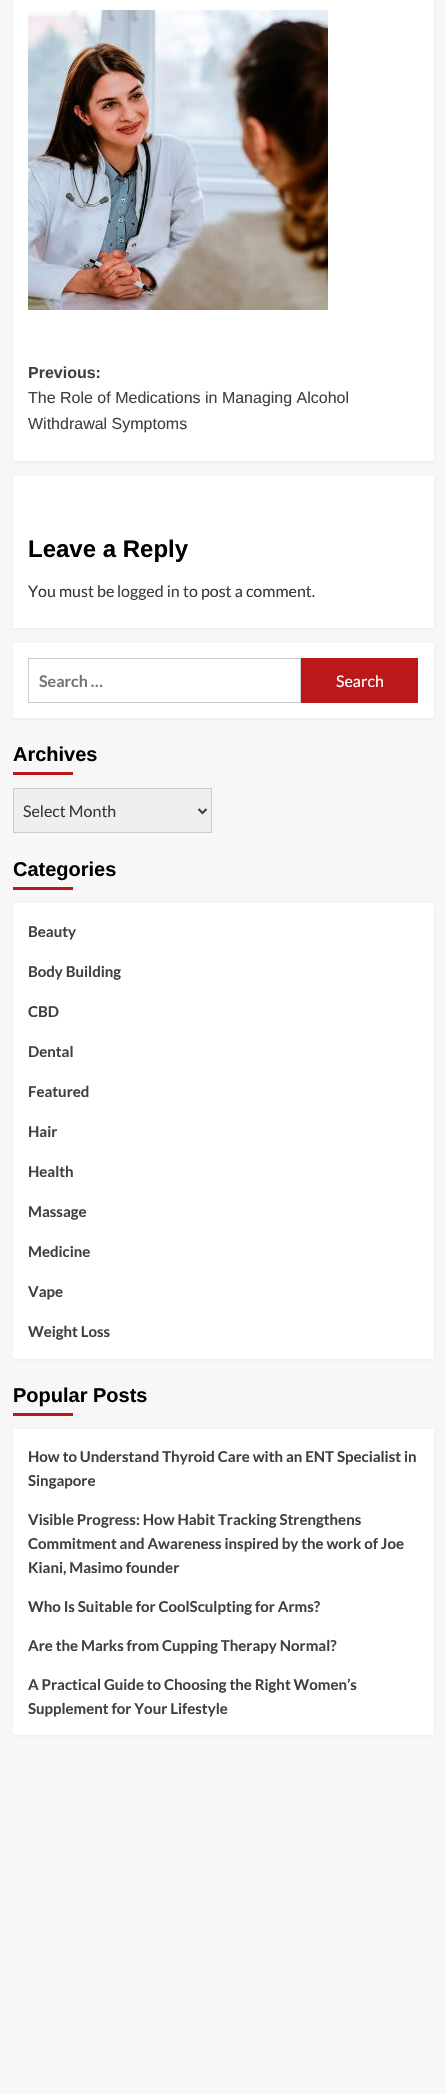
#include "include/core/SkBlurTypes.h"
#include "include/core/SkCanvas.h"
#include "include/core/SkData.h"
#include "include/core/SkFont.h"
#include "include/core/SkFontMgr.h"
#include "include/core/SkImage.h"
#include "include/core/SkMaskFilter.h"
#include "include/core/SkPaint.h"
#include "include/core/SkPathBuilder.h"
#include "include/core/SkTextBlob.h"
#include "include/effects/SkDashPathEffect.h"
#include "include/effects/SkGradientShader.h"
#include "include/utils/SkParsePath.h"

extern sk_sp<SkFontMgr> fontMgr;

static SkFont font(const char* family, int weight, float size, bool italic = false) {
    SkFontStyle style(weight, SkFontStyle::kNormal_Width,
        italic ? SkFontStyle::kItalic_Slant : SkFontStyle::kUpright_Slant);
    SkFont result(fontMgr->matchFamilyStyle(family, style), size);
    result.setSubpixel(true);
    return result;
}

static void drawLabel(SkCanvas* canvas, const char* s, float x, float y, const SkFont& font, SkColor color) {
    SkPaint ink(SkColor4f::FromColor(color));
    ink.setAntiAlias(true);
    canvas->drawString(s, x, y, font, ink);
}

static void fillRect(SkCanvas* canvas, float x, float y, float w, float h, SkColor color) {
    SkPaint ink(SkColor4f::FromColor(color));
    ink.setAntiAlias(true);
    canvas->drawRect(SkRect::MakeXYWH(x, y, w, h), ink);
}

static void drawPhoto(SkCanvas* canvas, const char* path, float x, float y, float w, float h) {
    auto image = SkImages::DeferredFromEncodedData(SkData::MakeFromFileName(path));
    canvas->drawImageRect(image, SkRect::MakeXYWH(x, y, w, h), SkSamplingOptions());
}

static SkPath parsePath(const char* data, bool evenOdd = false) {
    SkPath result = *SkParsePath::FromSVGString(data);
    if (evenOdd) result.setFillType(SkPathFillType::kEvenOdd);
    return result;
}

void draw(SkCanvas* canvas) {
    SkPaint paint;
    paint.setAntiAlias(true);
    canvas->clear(0xFFF7F7F7);
    paint.setColor(0x0D000000);
    paint.setMaskFilter(SkMaskFilter::MakeBlur(kNormal_SkBlurStyle, 1));
    canvas->drawRect(SkRect::MakeXYWH(13, -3, 421, 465), paint);
    paint.setMaskFilter(nullptr);
    fillRect(canvas, 13, 0, 421, 461, 0xFFFFFFFF);
    drawPhoto(canvas, "assets/img1.png", 28, 10, 300, 300);
    SkFont font1 = font("Liberation Sans", 700, 16);
    drawLabel(canvas, "Previous:", 28, 378, font1, 0xFF404040);
    SkFont font2 = font("Liberation Sans", 400, 16);
    drawLabel(canvas, "The Role of Medications in Managing Alcohol", 28, 403, font2, 0xFF404040);
    drawLabel(canvas, "Withdrawal Symptoms", 28, 429, font2, 0xFF404040);
    paint.setMaskFilter(SkMaskFilter::MakeBlur(kNormal_SkBlurStyle, 1));
    canvas->drawRect(SkRect::MakeXYWH(13, 477, 421, 152), paint);
    paint.setMaskFilter(nullptr);
    fillRect(canvas, 13, 476, 421, 152, 0xFFFFFFFF);
    SkFont font3 = font("Liberation Sans", 700, 24);
    drawLabel(canvas, "Leave a Reply", 28, 557, font3, 0xFF000000);
    SkFont font4 = font("Lato", 400, 16);
    drawLabel(canvas, "You must be", 28, 597, font4, 0xFF3A3A3A);
    drawLabel(canvas, "logged in", 117, 597, font4, 0xFF404040);
    drawLabel(canvas, "to post a comment.", 183, 597, font4, 0xFF3A3A3A);
    paint.setMaskFilter(SkMaskFilter::MakeBlur(kNormal_SkBlurStyle, 1));
    canvas->drawRect(SkRect::MakeXYWH(13, 644, 421, 75), paint);
    paint.setMaskFilter(nullptr);
    fillRect(canvas, 13, 643, 421, 75, 0xFFFFFFFF);
    paint.setStroke(true);
    paint.setStrokeWidth(1);
    paint.setColor(0xFFCCCCCC);
    canvas->drawRect(SkRect::MakeXYWH(28.5f, 658.5f, 272, 44), paint);
    SkFont font5 = font("Lato", 700, 16);
    drawLabel(canvas, "Search …", 39, 687, font5, 0xFF757575);
    fillRect(canvas, 301, 658, 117, 45, 0xFFBB1919);
    drawLabel(canvas, "Search", 336, 687, font4, 0xFFFFFFFF);
    SkFont font6 = font("Liberation Sans", 700, 20);
    drawLabel(canvas, "Archives", 13, 761, font6, 0xFF000000);
    fillRect(canvas, 13, 772, 60, 3, 0xFFBB1919);
    paint.setStroke(false);
    paint.setColor(0xFFEFEFEF);
    canvas->drawRect(SkRect::MakeXYWH(13.5f, 788.5f, 198, 44), paint);
    paint.setStroke(true);
    paint.setColor(0xFFCCCCCC);
    canvas->drawRect(SkRect::MakeXYWH(13.5f, 788.5f, 198, 44), paint);
    paint.setStrokeWidth(2);
    paint.setColor(0xFF3A3A3A);
    canvas->drawPath(parsePath("M198.5 809L202.5 813L206.5 809"), paint);
    drawLabel(canvas, "Select Month", 23, 817, font4, 0xFF3A3A3A);
    drawLabel(canvas, "Categories", 13, 876, font6, 0xFF000000);
    fillRect(canvas, 13, 887, 60, 3, 0xFFBB1919);
    paint.setStroke(false);
    paint.setColor(0x0D000000);
    paint.setMaskFilter(SkMaskFilter::MakeBlur(kNormal_SkBlurStyle, 1));
    canvas->drawRect(SkRect::MakeXYWH(13, 904, 421, 456), paint);
    paint.setMaskFilter(nullptr);
    fillRect(canvas, 13, 903, 421, 456, 0xFFFFFFFF);
    SkFont font7 = font("Lato", 700, 15);
    drawLabel(canvas, "Beauty", 28, 937, font7, 0xFF404040);
    drawLabel(canvas, "Body Building", 28, 977, font7, 0xFF404040);
    drawLabel(canvas, "CBD", 28, 1017, font7, 0xFF404040);
    drawLabel(canvas, "Dental", 28, 1057, font7, 0xFF404040);
    drawLabel(canvas, "Featured", 28, 1097, font7, 0xFF404040);
    drawLabel(canvas, "Hair", 28, 1137, font7, 0xFF404040);
    drawLabel(canvas, "Health", 28, 1177, font7, 0xFF404040);
    drawLabel(canvas, "Massage", 28, 1217, font7, 0xFF404040);
    drawLabel(canvas, "Medicine", 28, 1257, font7, 0xFF404040);
    drawLabel(canvas, "Vape", 28, 1297, font7, 0xFF404040);
    drawLabel(canvas, "Weight Loss", 28, 1337, font7, 0xFF404040);
    drawLabel(canvas, "Popular Posts", 13, 1402, font6, 0xFF000000);
    fillRect(canvas, 13, 1413, 60, 3, 0xFFBB1919);
    paint.setMaskFilter(SkMaskFilter::MakeBlur(kNormal_SkBlurStyle, 1));
    canvas->drawRect(SkRect::MakeXYWH(13, 1430, 421, 306), paint);
    paint.setMaskFilter(nullptr);
    fillRect(canvas, 13, 1429, 421, 306, 0xFFFFFFFF);
    drawLabel(canvas, "How to Understand Thyroid Care with an ENT Specialist in", 28, 1462, font7, 0xFF404040);
    drawLabel(canvas, "Singapore", 28, 1486, font7, 0xFF404040);
    drawLabel(canvas, "Visible Progress: How Habit Tracking Strengthens", 28, 1525, font7, 0xFF404040);
    drawLabel(canvas, "Commitment and Awareness inspired by the work of Joe", 28, 1549, font7, 0xFF404040);
    drawLabel(canvas, "Kiani, Masimo founder", 28, 1573, font7, 0xFF404040);
    drawLabel(canvas, "Who Is Suitable for CoolSculpting for Arms?", 28, 1612, font7, 0xFF404040);
    drawLabel(canvas, "Are the Marks from Cupping Therapy Normal?", 28, 1651, font7, 0xFF404040);
    drawLabel(canvas, "A Practical Guide to Choosing the Right Women’s", 28, 1690, font7, 0xFF404040);
    drawLabel(canvas, "Supplement for Your Lifestyle", 28, 1714, font7, 0xFF404040);
}
